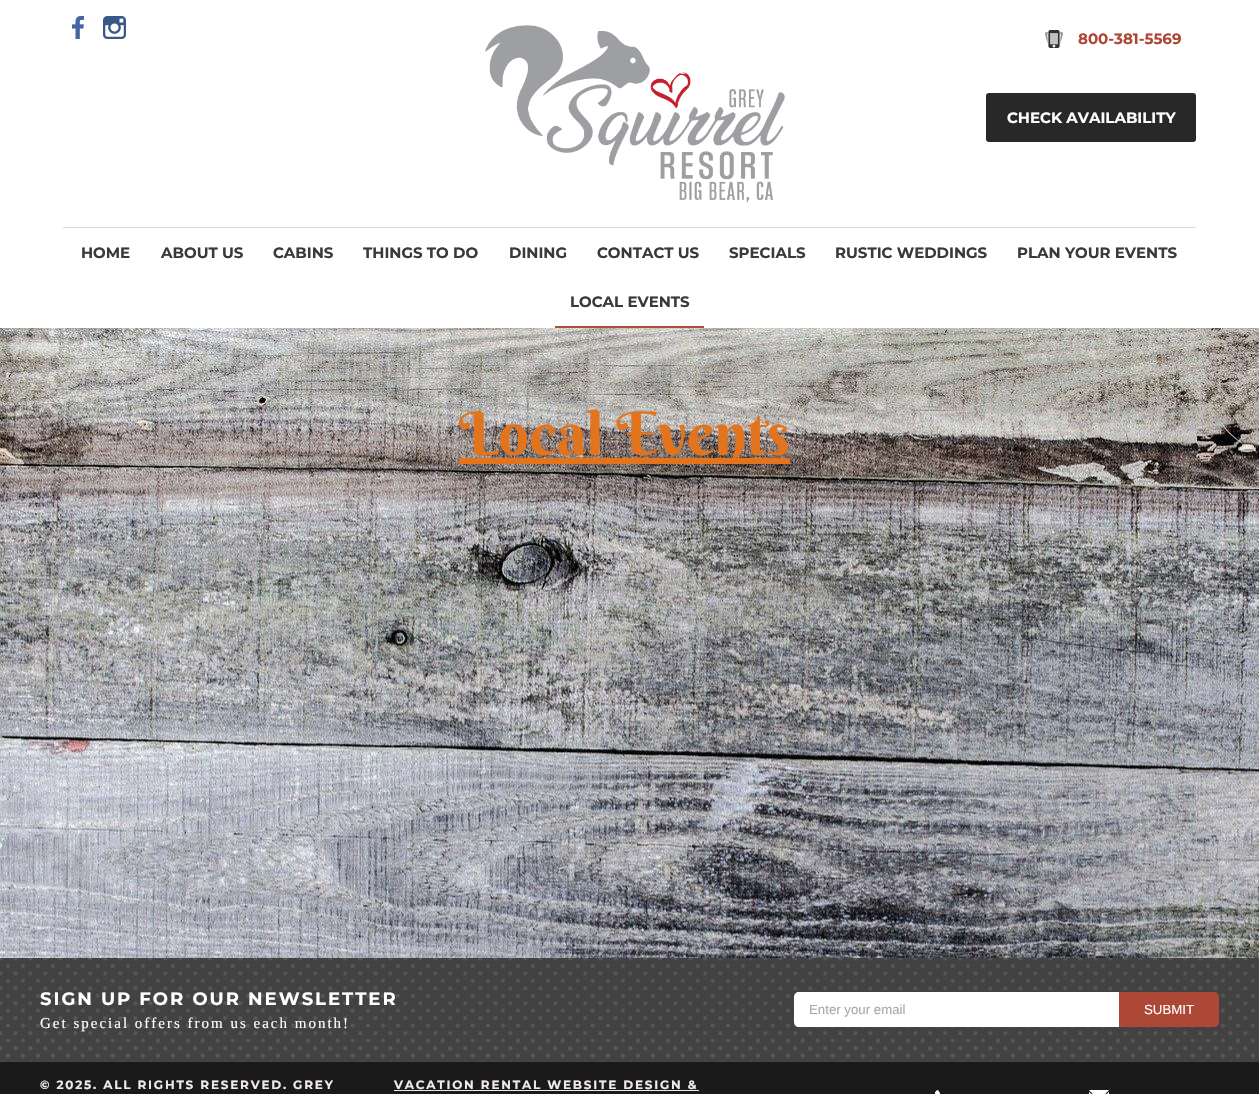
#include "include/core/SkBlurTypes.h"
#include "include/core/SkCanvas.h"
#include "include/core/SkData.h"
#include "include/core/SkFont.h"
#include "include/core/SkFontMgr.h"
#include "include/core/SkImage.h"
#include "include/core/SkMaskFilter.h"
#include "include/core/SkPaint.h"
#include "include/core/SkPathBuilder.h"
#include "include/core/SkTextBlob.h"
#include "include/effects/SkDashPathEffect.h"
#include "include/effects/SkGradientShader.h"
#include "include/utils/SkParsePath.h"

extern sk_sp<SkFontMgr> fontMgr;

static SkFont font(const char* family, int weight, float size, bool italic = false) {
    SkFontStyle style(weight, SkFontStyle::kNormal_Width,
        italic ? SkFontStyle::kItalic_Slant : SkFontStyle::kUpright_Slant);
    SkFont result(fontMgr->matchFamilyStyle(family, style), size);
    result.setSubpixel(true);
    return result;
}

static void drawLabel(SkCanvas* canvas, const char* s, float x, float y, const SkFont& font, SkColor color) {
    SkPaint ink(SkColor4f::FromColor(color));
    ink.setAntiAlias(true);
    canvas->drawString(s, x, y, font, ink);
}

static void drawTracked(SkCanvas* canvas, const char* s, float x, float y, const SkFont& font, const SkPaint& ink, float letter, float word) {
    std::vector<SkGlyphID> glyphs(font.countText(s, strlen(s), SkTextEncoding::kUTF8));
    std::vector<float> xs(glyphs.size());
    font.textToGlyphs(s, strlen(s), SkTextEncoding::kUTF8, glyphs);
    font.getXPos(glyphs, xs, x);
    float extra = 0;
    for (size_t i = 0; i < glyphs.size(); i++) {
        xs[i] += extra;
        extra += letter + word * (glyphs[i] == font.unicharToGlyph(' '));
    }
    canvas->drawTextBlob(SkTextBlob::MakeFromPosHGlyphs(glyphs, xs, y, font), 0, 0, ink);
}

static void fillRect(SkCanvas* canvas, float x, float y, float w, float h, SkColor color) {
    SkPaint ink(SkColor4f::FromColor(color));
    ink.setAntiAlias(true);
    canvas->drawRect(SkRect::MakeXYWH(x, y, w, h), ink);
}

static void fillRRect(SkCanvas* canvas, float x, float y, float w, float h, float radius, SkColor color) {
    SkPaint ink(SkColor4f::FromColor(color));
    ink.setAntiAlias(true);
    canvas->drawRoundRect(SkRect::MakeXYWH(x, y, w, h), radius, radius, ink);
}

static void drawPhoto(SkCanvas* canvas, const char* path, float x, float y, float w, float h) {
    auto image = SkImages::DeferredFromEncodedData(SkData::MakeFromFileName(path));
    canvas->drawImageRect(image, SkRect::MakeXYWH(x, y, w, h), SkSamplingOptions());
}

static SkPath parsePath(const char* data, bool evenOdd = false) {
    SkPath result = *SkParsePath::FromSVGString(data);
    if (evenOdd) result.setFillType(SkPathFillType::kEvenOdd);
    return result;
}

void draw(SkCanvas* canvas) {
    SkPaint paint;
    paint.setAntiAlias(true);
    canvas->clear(0xFFFFFFFF);
    drawPhoto(canvas, "assets/img1.png", 72, 16, 12, 23);
    drawPhoto(canvas, "assets/img2.png", 103, 16, 23, 23);
    drawPhoto(canvas, "assets/img3.png", 485, 25, 300, 177);
    drawPhoto(canvas, "assets/img4.png", 1045, 30, 18, 18);
    SkFont font1 = font("Montserrat", 700, 15);
    drawLabel(canvas, "800-381-5569", 1078, 44, font1, 0xFFAD4736);
    fillRRect(canvas, 986, 93, 210, 49, 3, 0xFF282828);
    drawLabel(canvas, "CHECK AVAILABILITY", 1007, 123, font1, 0xFFFFFFFF);
    fillRect(canvas, 63, 227, 1133, 1, 0xFFD9D9D9);
    drawLabel(canvas, "HOME", 81, 258, font1, 0xFF3A3A3A);
    drawLabel(canvas, "ABOUT US", 161, 258, font1, 0xFF3A3A3A);
    drawLabel(canvas, "CABINS", 273, 258, font1, 0xFF3A3A3A);
    drawLabel(canvas, "THINGS TO DO", 363, 258, font1, 0xFF3A3A3A);
    drawLabel(canvas, "DINING", 509, 258, font1, 0xFF3A3A3A);
    drawLabel(canvas, "CONTACT US", 597, 258, font1, 0xFF3A3A3A);
    drawLabel(canvas, "SPECIALS", 729, 258, font1, 0xFF3A3A3A);
    drawLabel(canvas, "RUSTIC WEDDINGS", 835, 258, font1, 0xFF3A3A3A);
    drawLabel(canvas, "PLAN YOUR EVENTS", 1017, 258, font1, 0xFF3A3A3A);
    fillRect(canvas, 555, 326, 149, 2, 0xFFAF4D3D);
    drawLabel(canvas, "LOCAL EVENTS", 570, 307, font1, 0xFF3A3A3A);
    drawPhoto(canvas, "assets/img5.png", 0, 328, 1259, 630);
    fillRect(canvas, 459, 458, 331, 6, 0xFFE3741E);
    SkFont font2 = font("Berkshire Swash", 400, 60);
    drawLabel(canvas, "Local Events", 459, 455, font2, 0xFFE3741E);
    fillRect(canvas, 0, 958, 1259, 104, 0xFF424242);
    drawPhoto(canvas, "assets/img6.png", 0, 958, 1259, 104);
    SkFont font3 = font("Montserrat", 700, 18);
    paint.setColor(0xFFFFFFFF);
    drawTracked(canvas, "SIGN UP FOR OUR NEWSLETTER", 40, 1005, font3, paint, 2, 0);
    SkFont font4 = font("Liberation Serif", 400, 15);
    drawTracked(canvas, "Get special offers from us each month!", 40, 1028, font4, paint, 2, 0);
    canvas->drawPath(parsePath("M799 992H1119V1027H799C796 1027 794 1025 794 1022V997C794 994 796 992 799 992Z"), paint);
    SkFont font5 = font("Liberation Sans", 400, 13.25f);
    drawLabel(canvas, "Enter your email", 809, 1014, font5, 0xFFA8A8A8);
    paint.setColor(0xFFAD4736);
    canvas->drawPath(parsePath("M1119 992H1214C1217 992 1219 994 1219 997V1022C1219 1025 1217 1027 1214 1027H1119Z"), paint);
    drawLabel(canvas, "SUBMIT", 1144, 1014, font5, 0xFFFFFFFF);
    fillRect(canvas, 0, 1062, 1259, 32, 0xFF1A1A1A);
    SkFont font6 = font("Montserrat", 700, 12);
    paint.setColor(0xFFF1E9EB);
    drawTracked(canvas, "© 2025. ALL RIGHTS RESERVED. GREY", 40, 1089, font6, paint, 1.8f, 0);
    drawTracked(canvas, "VACATION RENTAL WEBSITE DESIGN &", 394, 1089, font6, paint, 1.8f, 0);
    fillRect(canvas, 394, 1090, 305, 1, 0xFFF1E9EB);
    drawPhoto(canvas, "assets/img7.png", 935, 1090, 5, 4);
    drawPhoto(canvas, "assets/img8.png", 1089, 1090, 20, 4);
}
